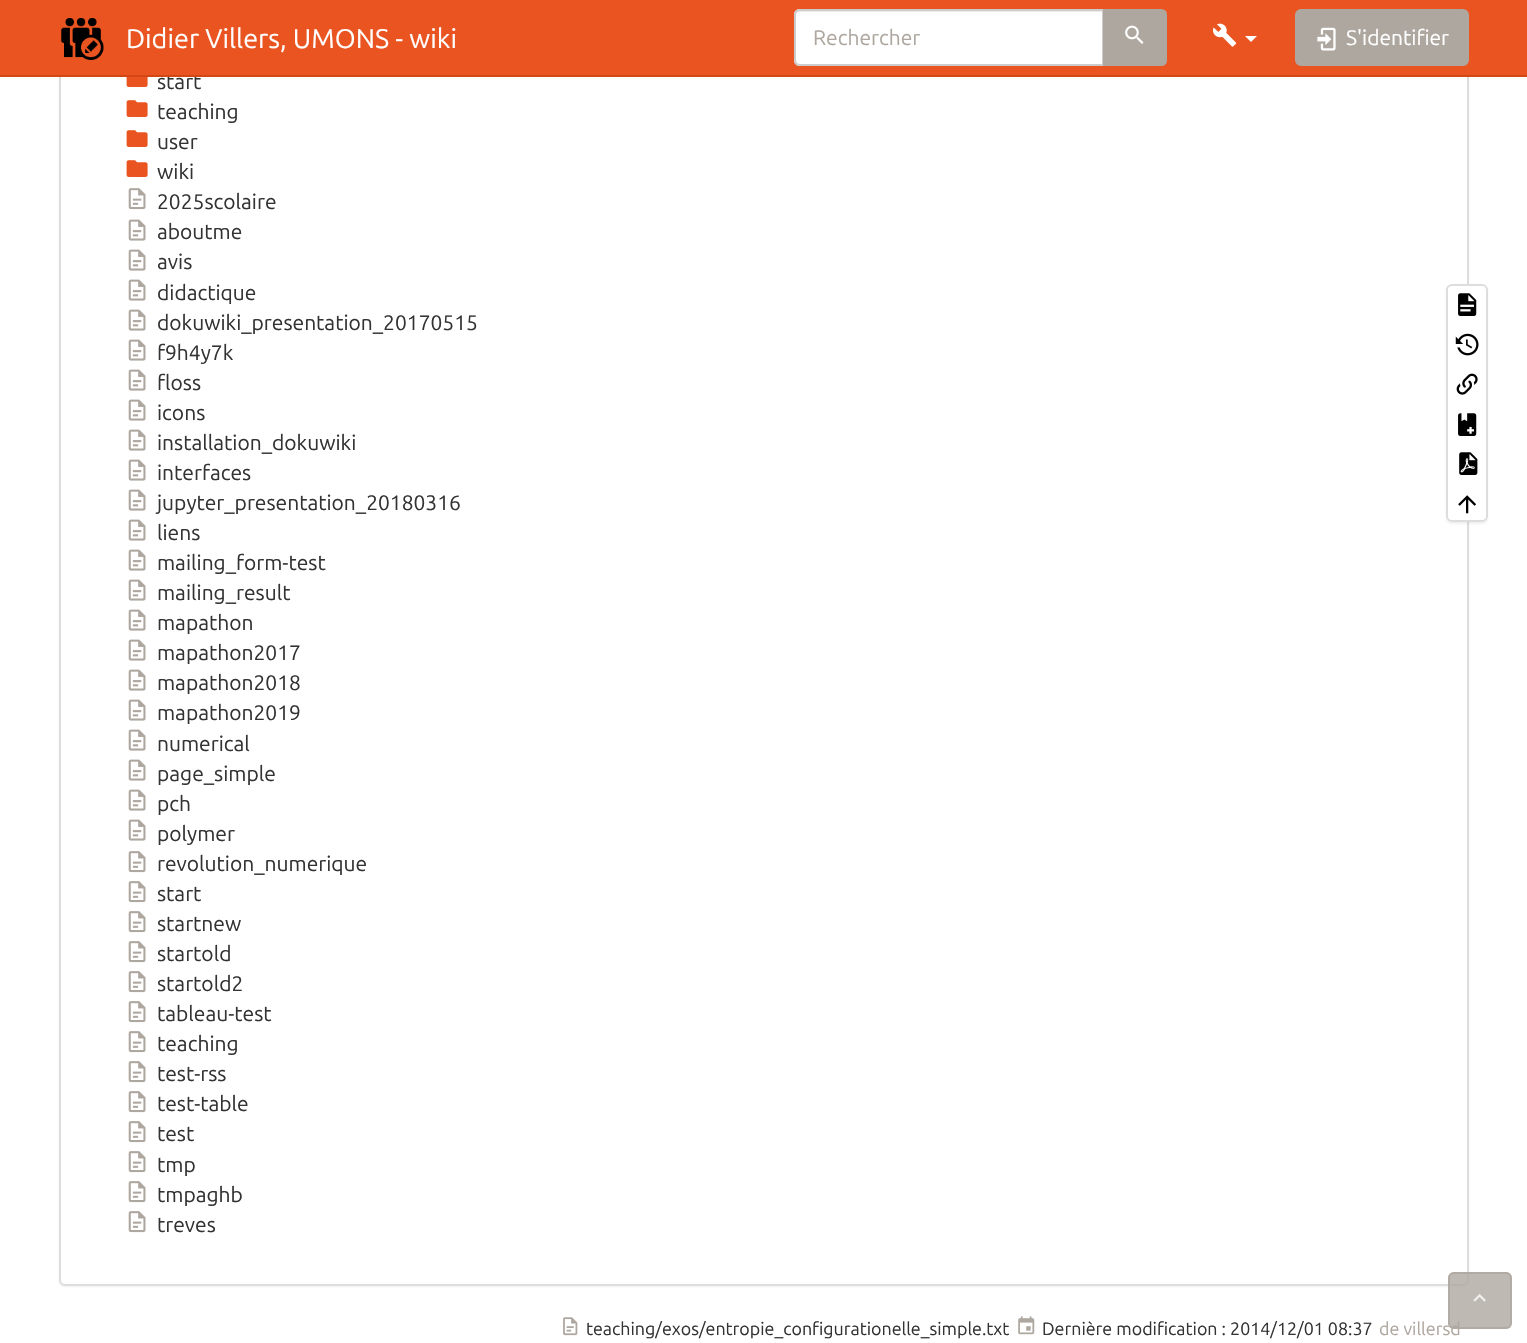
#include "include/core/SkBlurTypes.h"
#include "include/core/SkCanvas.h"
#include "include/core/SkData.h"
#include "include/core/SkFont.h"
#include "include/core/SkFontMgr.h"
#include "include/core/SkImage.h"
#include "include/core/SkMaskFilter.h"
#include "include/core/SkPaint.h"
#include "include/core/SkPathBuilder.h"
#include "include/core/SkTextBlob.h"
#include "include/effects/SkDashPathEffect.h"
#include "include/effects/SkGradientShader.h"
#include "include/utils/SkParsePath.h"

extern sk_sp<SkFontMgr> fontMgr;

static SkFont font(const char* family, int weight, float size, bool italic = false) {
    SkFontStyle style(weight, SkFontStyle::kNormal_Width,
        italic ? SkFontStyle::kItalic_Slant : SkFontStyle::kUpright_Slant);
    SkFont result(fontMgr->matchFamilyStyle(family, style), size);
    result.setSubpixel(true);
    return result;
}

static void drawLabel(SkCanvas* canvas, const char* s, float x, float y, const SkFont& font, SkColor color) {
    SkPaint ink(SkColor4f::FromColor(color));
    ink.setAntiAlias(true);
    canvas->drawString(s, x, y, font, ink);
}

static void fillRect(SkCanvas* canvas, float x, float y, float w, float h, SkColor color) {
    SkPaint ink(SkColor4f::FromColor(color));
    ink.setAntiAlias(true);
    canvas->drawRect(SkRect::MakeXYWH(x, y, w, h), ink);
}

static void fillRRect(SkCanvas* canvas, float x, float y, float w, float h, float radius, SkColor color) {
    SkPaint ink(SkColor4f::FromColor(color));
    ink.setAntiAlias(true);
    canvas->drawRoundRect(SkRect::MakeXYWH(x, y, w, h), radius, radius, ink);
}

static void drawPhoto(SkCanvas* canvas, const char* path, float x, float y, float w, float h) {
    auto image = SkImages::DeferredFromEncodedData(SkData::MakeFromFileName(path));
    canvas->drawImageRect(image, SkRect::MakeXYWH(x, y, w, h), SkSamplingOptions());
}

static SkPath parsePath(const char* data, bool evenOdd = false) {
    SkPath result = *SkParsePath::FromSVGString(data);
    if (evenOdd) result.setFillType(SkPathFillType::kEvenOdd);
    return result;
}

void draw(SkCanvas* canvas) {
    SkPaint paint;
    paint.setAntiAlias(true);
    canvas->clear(0xFFFFFFFF);
    paint.setColor(0x0D000000);
    paint.setMaskFilter(SkMaskFilter::MakeBlur(kNormal_SkBlurStyle, 1));
    canvas->drawRoundRect(SkRect::MakeXYWH(59, -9, 1410, 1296), 6, 6, paint);
    paint.setMaskFilter(nullptr);
    paint.setColor(0xFFFFFFFF);
    canvas->drawRoundRect(SkRect::MakeXYWH(60, -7, 1408, 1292), 5, 5, paint);
    paint.setStroke(true);
    paint.setStrokeWidth(2);
    paint.setColor(0xFFDDDDDD);
    canvas->drawRoundRect(SkRect::MakeXYWH(60, -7, 1408, 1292), 5, 5, paint);
    SkFont font1 = font("Ubuntu", 400, 21);
    drawLabel(canvas, "start", 157, 89, font1, 0xFF333333);
    fillRect(canvas, 0, 0, 1527, 75, 0xFFE95420);
    fillRect(canvas, 0, 75, 1527, 2, 0xFFD34615);
    drawPhoto(canvas, "assets/img1.png", 61, 18, 43, 42);
    SkFont font2 = font("Ubuntu", 400, 27);
    drawLabel(canvas, "Didier Villers, UMONS - wiki", 126, 48, font2, 0xFFFFFFFF);
    paint.setStroke(false);
    paint.setColor(0xFFFFFFFF);
    canvas->drawPath(parsePath("M800 9H1104V66H800C796.5 66 794 63.5 794 60V15C794 11.5 796.5 9 800 9Z"), paint);
    paint.setColor(0xFFECECEC);
    canvas->drawPath(parsePath("M800 12H1102V65H1103V11H800C797 11 795 13 795 16C795 14 797 12 800 12Z"), paint);
    paint.setStroke(true);
    paint.setColor(0xFFCCCCCC);
    canvas->drawPath(parsePath("M800 10H1103V65H800C797 65 795 63 795 60V15C795 12 797 10 800 10Z"), paint);
    drawLabel(canvas, "Rechercher", 813, 45, font1, 0xFFAEA79F);
    paint.setStroke(false);
    paint.setColor(0xFFAEA79F);
    canvas->drawPath(parsePath("M1104 10H1161C1164 10 1166 12 1166 15V60C1166 63 1164 65 1161 65H1104Z"), paint);
    paint.setStroke(true);
    canvas->drawPath(parsePath("M1104 10H1161C1164 10 1166 12 1166 15V60C1166 63 1164 65 1161 65H1104Z"), paint);
    drawPhoto(canvas, "assets/img2.png", 1125, 25, 19, 19);
    drawPhoto(canvas, "assets/img3.png", 1213, 23, 24, 24);
    paint.setStroke(false);
    paint.setColor(0xFFFFFFFF);
    canvas->drawPath(parsePath("M1245 36H1257L1251 42Z"), paint);
    paint.setColor(0xFFAEA79F);
    canvas->drawRoundRect(SkRect::MakeXYWH(1296, 10, 172, 55), 5, 5, paint);
    paint.setStroke(true);
    canvas->drawRoundRect(SkRect::MakeXYWH(1296, 10, 172, 55), 5, 5, paint);
    drawPhoto(canvas, "assets/img4.png", 1317, 27, 19, 24);
    drawLabel(canvas, "S'identifier", 1346, 45, font1, 0xFFFFFFFF);
    drawPhoto(canvas, "assets/img5.png", 126, 77, 22, 10);
    drawPhoto(canvas, "assets/img6.png", 126, 100, 22, 17);
    drawLabel(canvas, "teaching", 157, 119, font1, 0xFF333333);
    drawPhoto(canvas, "assets/img6.png", 126, 130, 22, 17);
    drawLabel(canvas, "user", 157, 149, font1, 0xFF333333);
    drawPhoto(canvas, "assets/img6.png", 126, 160, 22, 17);
    drawLabel(canvas, "wiki", 157, 179, font1, 0xFF333333);
    drawPhoto(canvas, "assets/img7.png", 128, 188, 18, 22);
    drawLabel(canvas, "2025scolaire", 157, 209, font1, 0xFF333333);
    drawPhoto(canvas, "assets/img8.png", 128, 219, 18, 22);
    drawLabel(canvas, "aboutme", 157, 239, font1, 0xFF333333);
    drawPhoto(canvas, "assets/img8.png", 128, 249, 18, 22);
    drawLabel(canvas, "avis", 157, 269, font1, 0xFF333333);
    drawPhoto(canvas, "assets/img8.png", 128, 279, 18, 22);
    drawLabel(canvas, "didactique", 157, 300, font1, 0xFF333333);
    drawPhoto(canvas, "assets/img8.png", 128, 309, 18, 22);
    drawLabel(canvas, "dokuwiki_presentation_20170515", 157, 330, font1, 0xFF333333);
    drawPhoto(canvas, "assets/img8.png", 128, 339, 18, 22);
    drawLabel(canvas, "f9h4y7k", 157, 360, font1, 0xFF333333);
    drawPhoto(canvas, "assets/img8.png", 128, 369, 18, 22);
    drawLabel(canvas, "floss", 157, 390, font1, 0xFF333333);
    drawPhoto(canvas, "assets/img8.png", 128, 399, 18, 22);
    drawLabel(canvas, "icons", 157, 420, font1, 0xFF333333);
    drawPhoto(canvas, "assets/img8.png", 128, 429, 18, 22);
    drawLabel(canvas, "installation_dokuwiki", 157, 450, font1, 0xFF333333);
    drawPhoto(canvas, "assets/img8.png", 128, 459, 18, 22);
    drawLabel(canvas, "interfaces", 157, 480, font1, 0xFF333333);
    drawPhoto(canvas, "assets/img8.png", 128, 489, 18, 22);
    drawLabel(canvas, "jupyter_presentation_20180316", 157, 510, font1, 0xFF333333);
    drawPhoto(canvas, "assets/img8.png", 128, 519, 18, 22);
    drawLabel(canvas, "liens", 157, 540, font1, 0xFF333333);
    drawPhoto(canvas, "assets/img8.png", 128, 549, 18, 22);
    drawLabel(canvas, "mailing_form-test", 157, 570, font1, 0xFF333333);
    drawPhoto(canvas, "assets/img8.png", 128, 579, 18, 22);
    drawLabel(canvas, "mailing_result", 157, 600, font1, 0xFF333333);
    drawPhoto(canvas, "assets/img8.png", 128, 609, 18, 22);
    drawLabel(canvas, "mapathon", 157, 630, font1, 0xFF333333);
    drawPhoto(canvas, "assets/img8.png", 128, 639, 18, 22);
    drawLabel(canvas, "mapathon2017", 157, 660, font1, 0xFF333333);
    drawPhoto(canvas, "assets/img8.png", 128, 669, 18, 22);
    drawLabel(canvas, "mapathon2018", 157, 690, font1, 0xFF333333);
    drawPhoto(canvas, "assets/img8.png", 128, 699, 18, 22);
    drawLabel(canvas, "mapathon2019", 157, 720, font1, 0xFF333333);
    drawPhoto(canvas, "assets/img8.png", 128, 729, 18, 22);
    drawLabel(canvas, "numerical", 157, 751, font1, 0xFF333333);
    drawPhoto(canvas, "assets/img8.png", 128, 759, 18, 22);
    drawLabel(canvas, "page_simple", 157, 781, font1, 0xFF333333);
    drawPhoto(canvas, "assets/img8.png", 128, 789, 18, 22);
    drawLabel(canvas, "pch", 157, 811, font1, 0xFF333333);
    drawPhoto(canvas, "assets/img8.png", 128, 819, 18, 22);
    drawLabel(canvas, "polymer", 157, 841, font1, 0xFF333333);
    drawPhoto(canvas, "assets/img7.png", 128, 851, 18, 22);
    drawLabel(canvas, "revolution_numerique", 157, 871, font1, 0xFF333333);
    drawPhoto(canvas, "assets/img7.png", 128, 881, 18, 22);
    drawLabel(canvas, "start", 157, 901, font1, 0xFF333333);
    drawPhoto(canvas, "assets/img7.png", 128, 911, 18, 22);
    drawLabel(canvas, "startnew", 157, 931, font1, 0xFF333333);
    drawPhoto(canvas, "assets/img7.png", 128, 941, 18, 22);
    drawLabel(canvas, "startold", 157, 961, font1, 0xFF333333);
    drawPhoto(canvas, "assets/img7.png", 128, 971, 18, 22);
    drawLabel(canvas, "startold2", 157, 991, font1, 0xFF333333);
    drawPhoto(canvas, "assets/img7.png", 128, 1001, 18, 22);
    drawLabel(canvas, "tableau-test", 157, 1021, font1, 0xFF333333);
    drawPhoto(canvas, "assets/img7.png", 128, 1031, 18, 22);
    drawLabel(canvas, "teaching", 157, 1051, font1, 0xFF333333);
    drawPhoto(canvas, "assets/img7.png", 128, 1061, 18, 22);
    drawLabel(canvas, "test-rss", 157, 1081, font1, 0xFF333333);
    drawPhoto(canvas, "assets/img7.png", 128, 1091, 18, 22);
    drawLabel(canvas, "test-table", 157, 1111, font1, 0xFF333333);
    drawPhoto(canvas, "assets/img7.png", 128, 1121, 18, 22);
    drawLabel(canvas, "test", 157, 1141, font1, 0xFF333333);
    drawPhoto(canvas, "assets/img7.png", 128, 1151, 18, 22);
    drawLabel(canvas, "tmp", 157, 1172, font1, 0xFF333333);
    drawPhoto(canvas, "assets/img7.png", 128, 1181, 18, 22);
    drawLabel(canvas, "tmpaghb", 157, 1202, font1, 0xFF333333);
    drawPhoto(canvas, "assets/img7.png", 128, 1211, 18, 22);
    drawLabel(canvas, "treves", 157, 1232, font1, 0xFF333333);
    paint.setStroke(false);
    paint.setColor(0x0D000000);
    paint.setMaskFilter(SkMaskFilter::MakeBlur(kNormal_SkBlurStyle, 1));
    canvas->drawRoundRect(SkRect::MakeXYWH(1446, 285, 42, 239), 6, 6, paint);
    paint.setMaskFilter(nullptr);
    paint.setColor(0xFFFFFFFF);
    canvas->drawRoundRect(SkRect::MakeXYWH(1447, 285, 40, 236), 5, 5, paint);
    paint.setStroke(true);
    paint.setColor(0xFFDDDDDD);
    canvas->drawRoundRect(SkRect::MakeXYWH(1447, 285, 40, 236), 5, 5, paint);
    drawPhoto(canvas, "assets/img9.png", 1458, 293, 19, 23);
    drawPhoto(canvas, "assets/img10.png", 1455, 333, 24, 23);
    drawPhoto(canvas, "assets/img11.png", 1456, 373, 22, 22);
    drawPhoto(canvas, "assets/img12.png", 1458, 413, 19, 23);
    drawPhoto(canvas, "assets/img13.png", 1459, 452, 19, 23);
    drawPhoto(canvas, "assets/img14.png", 1458, 495, 18, 19);
    drawPhoto(canvas, "assets/img15.png", 563, 1317, 15, 19);
    SkFont font3 = font("Ubuntu", 400, 17.85f);
    drawLabel(canvas, "teaching/exos/entropie_configurationelle_simple.txt", 586, 1335, font3, 0xFF333333);
    drawPhoto(canvas, "assets/img16.png", 1018, 1316, 17, 19);
    drawLabel(canvas, "Dernière modification : 2014/12/01 08:37", 1042, 1335, font3, 0xFF333333);
    drawLabel(canvas, "de villersd", 1379, 1335, font3, 0xFFAEA79F);
    fillRRect(canvas, 1448, 1272, 64, 57, 6, 0xCCAEA79F);
    paint.setColor(0xCCAEA79F);
    canvas->drawRoundRect(SkRect::MakeXYWH(1449, 1273, 62, 55), 5, 5, paint);
    drawPhoto(canvas, "assets/img17.png", 1473, 1294, 13, 8);
}
